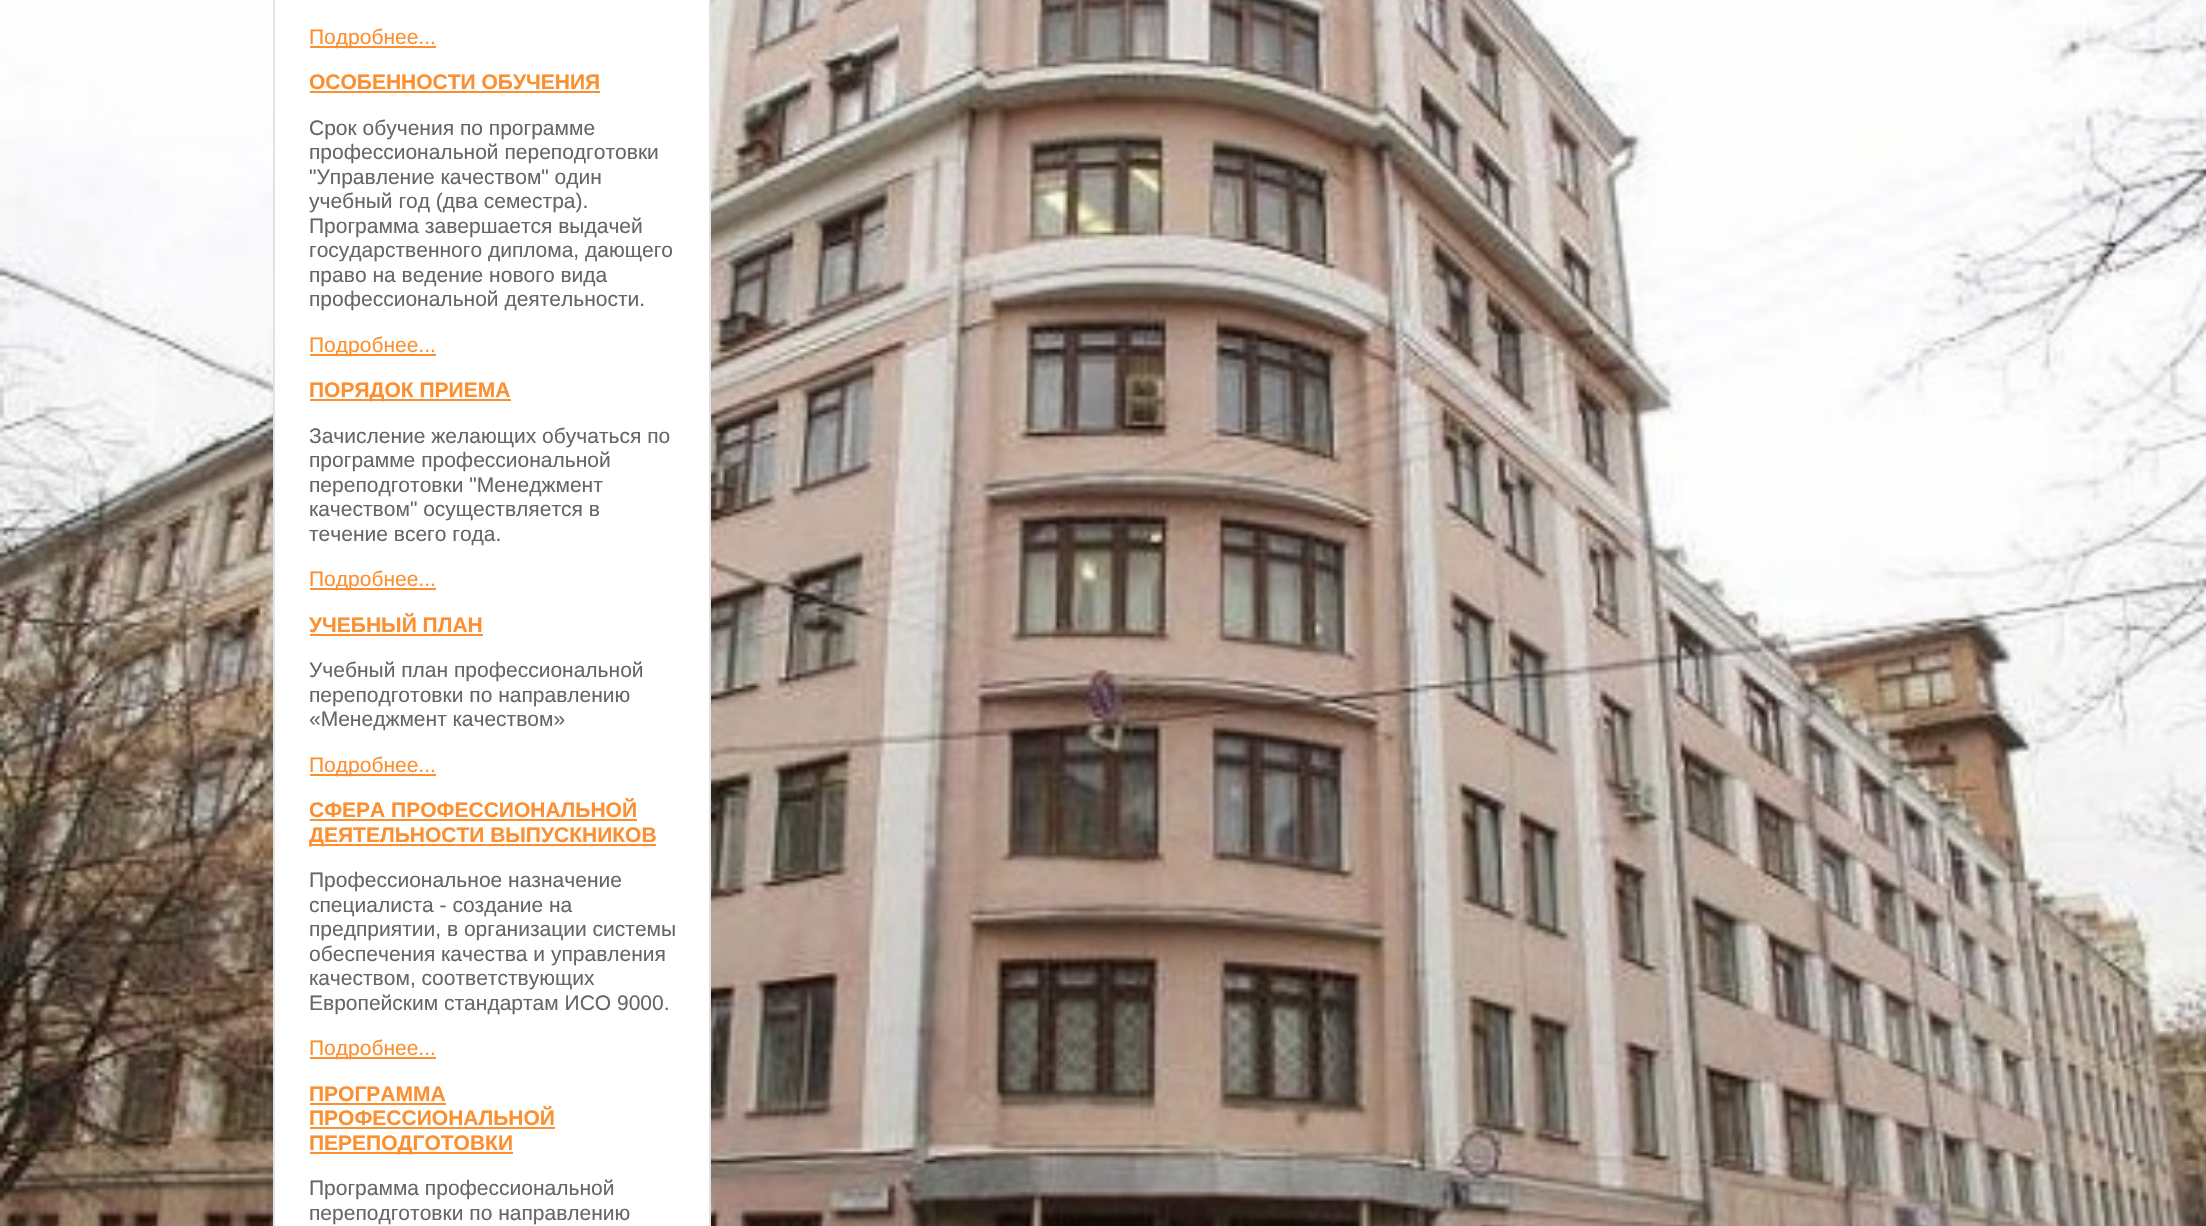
#include "include/core/SkBlurTypes.h"
#include "include/core/SkCanvas.h"
#include "include/core/SkData.h"
#include "include/core/SkFont.h"
#include "include/core/SkFontMgr.h"
#include "include/core/SkImage.h"
#include "include/core/SkMaskFilter.h"
#include "include/core/SkPaint.h"
#include "include/core/SkPathBuilder.h"
#include "include/core/SkTextBlob.h"
#include "include/effects/SkDashPathEffect.h"
#include "include/effects/SkGradientShader.h"
#include "include/utils/SkParsePath.h"

extern sk_sp<SkFontMgr> fontMgr;

static SkFont font(const char* family, int weight, float size, bool italic = false) {
    SkFontStyle style(weight, SkFontStyle::kNormal_Width,
        italic ? SkFontStyle::kItalic_Slant : SkFontStyle::kUpright_Slant);
    SkFont result(fontMgr->matchFamilyStyle(family, style), size);
    result.setSubpixel(true);
    return result;
}

static void drawLabel(SkCanvas* canvas, const char* s, float x, float y, const SkFont& font, SkColor color) {
    SkPaint ink(SkColor4f::FromColor(color));
    ink.setAntiAlias(true);
    canvas->drawString(s, x, y, font, ink);
}

static void fillRect(SkCanvas* canvas, float x, float y, float w, float h, SkColor color) {
    SkPaint ink(SkColor4f::FromColor(color));
    ink.setAntiAlias(true);
    canvas->drawRect(SkRect::MakeXYWH(x, y, w, h), ink);
}

static void drawPhoto(SkCanvas* canvas, const char* path, float x, float y, float w, float h) {
    auto image = SkImages::DeferredFromEncodedData(SkData::MakeFromFileName(path));
    canvas->drawImageRect(image, SkRect::MakeXYWH(x, y, w, h), SkSamplingOptions());
}

void draw(SkCanvas* canvas) {
    SkPaint paint;
    paint.setAntiAlias(true);
    canvas->clear(0xFFFFFFFF);
    drawPhoto(canvas, "assets/img1.png", 0, 0, 2206, 1226);
    paint.setColor(0xFFFFFFFF);
    canvas->drawRect(SkRect::MakeXYWH(274, -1, 436, 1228), paint);
    paint.setStroke(true);
    paint.setStrokeWidth(2);
    paint.setColor(0xFFE3E2E2);
    canvas->drawRect(SkRect::MakeXYWH(274, -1, 436, 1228), paint);
    fillRect(canvas, 310, 46, 126, 2, 0xFFFC8F30);
    SkFont font1 = font("Liberation Sans", 400, 21);
    drawLabel(canvas, "Подробнее...", 309, 44, font1, 0xFFFC8F30);
    SkFont font2 = font("Liberation Sans", 700, 21);
    drawLabel(canvas, "ОСОБЕННОСТИ ОБУЧЕНИЯ", 309, 89, font2, 0xFFFC8F30);
    fillRect(canvas, 310, 91, 290, 2, 0xFFFC8F30);
    drawLabel(canvas, "Срок обучения по программе", 309, 135, font1, 0xFF666666);
    drawLabel(canvas, "профессиональной переподготовки", 309, 159, font1, 0xFF666666);
    drawLabel(canvas, "\"Управление качеством\" один", 309, 184, font1, 0xFF666666);
    drawLabel(canvas, "учебный год (два семестра).", 309, 208, font1, 0xFF666666);
    drawLabel(canvas, "Программа завершается выдачей", 309, 233, font1, 0xFF666666);
    drawLabel(canvas, "государственного диплома, дающего", 309, 257, font1, 0xFF666666);
    drawLabel(canvas, "право на ведение нового вида", 309, 282, font1, 0xFF666666);
    drawLabel(canvas, "профессиональной деятельности.", 309, 306, font1, 0xFF666666);
    fillRect(canvas, 310, 354, 126, 2, 0xFFFC8F30);
    drawLabel(canvas, "Подробнее...", 309, 352, font1, 0xFFFC8F30);
    fillRect(canvas, 310, 399, 201, 2, 0xFFFC8F30);
    drawLabel(canvas, "ПОРЯДОК ПРИЕМА", 309, 397, font2, 0xFFFC8F30);
    drawLabel(canvas, "Зачисление желающих обучаться по", 309, 443, font1, 0xFF666666);
    drawLabel(canvas, "программе профессиональной", 309, 467, font1, 0xFF666666);
    drawLabel(canvas, "переподготовки \"Менеджмент", 309, 492, font1, 0xFF666666);
    drawLabel(canvas, "качеством\" осуществляется в", 309, 516, font1, 0xFF666666);
    drawLabel(canvas, "течение всего года.", 309, 541, font1, 0xFF666666);
    fillRect(canvas, 310, 588, 126, 2, 0xFFFC8F30);
    drawLabel(canvas, "Подробнее...", 309, 586, font1, 0xFFFC8F30);
    drawLabel(canvas, "УЧЕБНЫЙ ПЛАН", 309, 632, font2, 0xFFFC8F30);
    fillRect(canvas, 310, 634, 173, 2, 0xFFFC8F30);
    drawLabel(canvas, "Учебный план профессиональной", 309, 677, font1, 0xFF666666);
    drawLabel(canvas, "переподготовки по направлению", 309, 702, font1, 0xFF666666);
    drawLabel(canvas, "«Менеджмент качеством»", 309, 726, font1, 0xFF666666);
    fillRect(canvas, 310, 774, 126, 2, 0xFFFC8F30);
    drawLabel(canvas, "Подробнее...", 309, 772, font1, 0xFFFC8F30);
    drawLabel(canvas, "СФЕРА ПРОФЕССИОНАЛЬНОЙ", 309, 817, font2, 0xFFFC8F30);
    fillRect(canvas, 310, 819, 327, 2, 0xFFFC8F30);
    fillRect(canvas, 310, 844, 346, 2, 0xFFFC8F30);
    drawLabel(canvas, "ДЕЯТЕЛЬНОСТИ ВЫПУСКНИКОВ", 309, 842, font2, 0xFFFC8F30);
    drawLabel(canvas, "Профессиональное назначение", 309, 887, font1, 0xFF666666);
    drawLabel(canvas, "специалиста - создание на", 309, 912, font1, 0xFF666666);
    drawLabel(canvas, "предприятии, в организации системы", 309, 936, font1, 0xFF666666);
    drawLabel(canvas, "обеспечения качества и управления", 309, 961, font1, 0xFF666666);
    drawLabel(canvas, "качеством, соответствующих", 309, 985, font1, 0xFF666666);
    drawLabel(canvas, "Европейским стандартам ИСО 9000.", 309, 1010, font1, 0xFF666666);
    fillRect(canvas, 310, 1057, 126, 2, 0xFFFC8F30);
    drawLabel(canvas, "Подробнее...", 309, 1055, font1, 0xFFFC8F30);
    drawLabel(canvas, "ПРОГРАММА", 309, 1101, font2, 0xFFFC8F30);
    fillRect(canvas, 310, 1103, 136, 2, 0xFFFC8F30);
    drawLabel(canvas, "ПРОФЕССИОНАЛЬНОЙ", 309, 1125, font2, 0xFFFC8F30);
    fillRect(canvas, 310, 1127, 245, 2, 0xFFFC8F30);
    fillRect(canvas, 310, 1152, 203, 2, 0xFFFC8F30);
    drawLabel(canvas, "ПЕРЕПОДГОТОВКИ", 309, 1150, font2, 0xFFFC8F30);
    drawLabel(canvas, "Программа профессиональной", 309, 1195, font1, 0xFF666666);
    drawLabel(canvas, "переподготовки по направлению", 309, 1220, font1, 0xFF666666);
}
